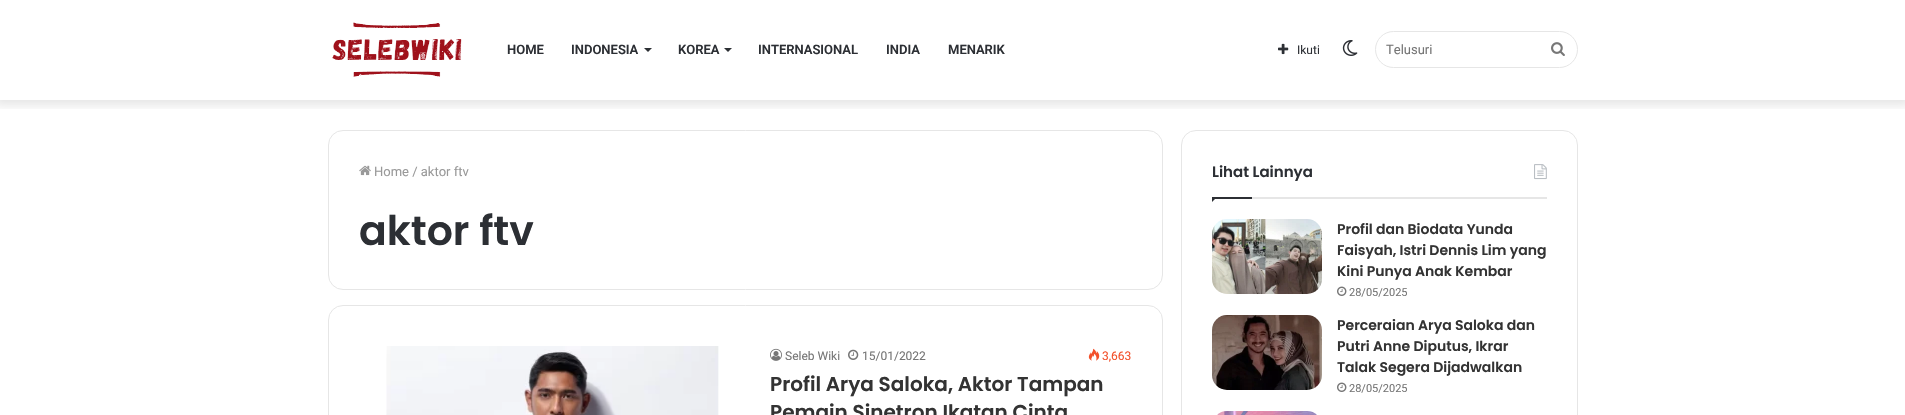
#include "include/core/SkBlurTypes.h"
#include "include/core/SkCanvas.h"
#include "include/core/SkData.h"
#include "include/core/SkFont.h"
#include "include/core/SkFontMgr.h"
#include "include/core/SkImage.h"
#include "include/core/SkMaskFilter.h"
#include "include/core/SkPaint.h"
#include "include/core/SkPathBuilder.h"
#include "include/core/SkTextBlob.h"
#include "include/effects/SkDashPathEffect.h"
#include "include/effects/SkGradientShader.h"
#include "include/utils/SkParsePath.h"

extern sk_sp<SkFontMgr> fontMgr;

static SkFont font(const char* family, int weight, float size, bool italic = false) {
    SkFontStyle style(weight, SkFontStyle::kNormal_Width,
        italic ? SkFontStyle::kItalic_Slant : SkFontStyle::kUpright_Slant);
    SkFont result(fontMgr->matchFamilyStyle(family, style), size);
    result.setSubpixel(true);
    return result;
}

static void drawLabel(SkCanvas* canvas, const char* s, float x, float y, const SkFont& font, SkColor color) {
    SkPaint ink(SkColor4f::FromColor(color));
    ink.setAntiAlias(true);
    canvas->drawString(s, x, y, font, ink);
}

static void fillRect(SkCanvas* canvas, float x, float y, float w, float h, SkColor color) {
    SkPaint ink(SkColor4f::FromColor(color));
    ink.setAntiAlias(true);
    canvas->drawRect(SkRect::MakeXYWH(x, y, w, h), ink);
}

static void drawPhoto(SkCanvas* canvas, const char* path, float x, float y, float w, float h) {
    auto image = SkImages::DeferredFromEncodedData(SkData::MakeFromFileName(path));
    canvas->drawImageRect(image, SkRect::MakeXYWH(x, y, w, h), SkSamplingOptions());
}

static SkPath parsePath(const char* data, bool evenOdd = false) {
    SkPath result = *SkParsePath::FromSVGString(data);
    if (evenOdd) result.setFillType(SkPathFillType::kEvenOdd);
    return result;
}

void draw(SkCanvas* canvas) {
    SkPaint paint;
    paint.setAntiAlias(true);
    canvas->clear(0xFFFFFFFF);
    canvas->save();
    canvas->clipRect(SkRect::MakeXYWH(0, 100, 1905, 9));
    paint.setColor(0x1A000000);
    paint.setMaskFilter(SkMaskFilter::MakeBlur(kNormal_SkBlurStyle, 5));
    canvas->drawRect(SkRect::MakeXYWH(-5, -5, 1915, 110), paint);
    paint.setMaskFilter(nullptr);
    canvas->restore();
    drawPhoto(canvas, "assets/img1.png", 332, 22, 130, 55);
    SkFont font1 = font("Roboto", 600, 13);
    drawLabel(canvas, "HOME", 507, 54, font1, 0xFF2C2F34);
    drawLabel(canvas, "INDONESIA", 571, 54, font1, 0xFF2C2F34);
    paint.setColor(0xFF2C2F34);
    canvas->drawPath(parsePath("M644 48H652L648 52Z"), paint);
    drawLabel(canvas, "KOREA", 678, 54, font1, 0xFF2C2F34);
    canvas->drawPath(parsePath("M724 48H732L728 52Z"), paint);
    drawLabel(canvas, "INTERNASIONAL", 758, 54, font1, 0xFF2C2F34);
    drawLabel(canvas, "INDIA", 886, 54, font1, 0xFF2C2F34);
    drawLabel(canvas, "MENARIK", 948, 54, font1, 0xFF2C2F34);
    drawPhoto(canvas, "assets/img2.png", 1278, 43, 11, 12);
    SkFont font2 = font("Roboto", 400, 12);
    drawLabel(canvas, "Ikuti", 1297, 54, font2, 0xFF2C2F34);
    drawPhoto(canvas, "assets/img3.png", 1342, 40, 16, 16);
    paint.setStroke(true);
    paint.setStrokeWidth(1);
    paint.setColor(0xFFE6E6E6);
    canvas->drawRoundRect(SkRect::MakeXYWH(1375.5f, 31.5f, 202, 36), 18, 18, paint);
    SkFont font3 = font("Roboto", 400, 13);
    drawLabel(canvas, "Telusuri", 1386, 54, font3, 0xFF767676);
    drawPhoto(canvas, "assets/img4.png", 1551, 42, 14, 14);
    canvas->drawRoundRect(SkRect::MakeXYWH(328.5f, 130.5f, 834, 159), 14.5f, 14.5f, paint);
    drawPhoto(canvas, "assets/img5.png", 359, 165, 12, 11);
    drawLabel(canvas, "Home / aktor ftv", 374, 176, font3, 0xFF999999);
    SkFont font4 = font("Poppins", 600, 41);
    drawLabel(canvas, "aktor ftv", 359, 245, font4, 0xFF2C2F34);
    canvas->drawRoundRect(SkRect::MakeXYWH(328.5f, 305.5f, 834, 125), 14.5f, 14.5f, paint);
    drawPhoto(canvas, "assets/img6.png", 386, 346, 333, 69);
    drawPhoto(canvas, "assets/img7.png", 770, 348, 12, 13);
    drawLabel(canvas, "Seleb Wiki", 785, 360, font2, 0xFF767676);
    drawPhoto(canvas, "assets/img8.png", 848, 349, 11, 11);
    drawLabel(canvas, "15/01/2022", 862, 360, font2, 0xFF767676);
    drawPhoto(canvas, "assets/img9.png", 1088, 348, 12, 13);
    drawLabel(canvas, "3,663", 1102, 360, font2, 0xFFF3502A);
    SkFont font5 = font("Poppins", 600, 20);
    drawLabel(canvas, "Profil Arya Saloka, Aktor Tampan", 770, 391, font5, 0xFF333333);
    drawLabel(canvas, "Pemain Sinetron Ikatan Cinta", 770, 419, font5, 0xFF333333);
    canvas->drawRoundRect(SkRect::MakeXYWH(1181.5f, 130.5f, 396, 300), 14.5f, 14.5f, paint);
    fillRect(canvas, 1252, 197, 295, 2, 0xFFE6E6E6);
    SkFont font6 = font("Poppins", 600, 15);
    drawLabel(canvas, "Lihat Lainnya", 1212, 177, font6, 0xFF2C2F34);
    drawPhoto(canvas, "assets/img10.png", 1534, 164, 13, 16);
    paint.setStroke(false);
    paint.setColor(0xFF2C2F34);
    canvas->drawPath(parsePath("M1212 197H1217L1212 202Z"), paint);
    fillRect(canvas, 1212, 197, 40, 2, 0xFF2C2F34);
    drawPhoto(canvas, "assets/img11.png", 1212, 219, 110, 75);
    SkFont font7 = font("Poppins", 600, 14);
    drawLabel(canvas, "Profil dan Biodata Yunda", 1337, 234, font7, 0xFF333333);
    drawLabel(canvas, "Faisyah, Istri Dennis Lim yang", 1337, 255, font7, 0xFF333333);
    drawLabel(canvas, "Kini Punya Anak Kembar", 1337, 276, font7, 0xFF333333);
    drawPhoto(canvas, "assets/img12.png", 1337, 286, 10, 10);
    SkFont font8 = font("Roboto", 400, 11);
    drawLabel(canvas, "28/05/2025", 1349, 296, font8, 0xFF767676);
    drawPhoto(canvas, "assets/img13.png", 1212, 315, 110, 75);
    drawLabel(canvas, "Perceraian Arya Saloka dan", 1337, 330, font7, 0xFF333333);
    drawLabel(canvas, "Putri Anne Diputus, Ikrar", 1337, 351, font7, 0xFF333333);
    drawLabel(canvas, "Talak Segera Dijadwalkan", 1337, 372, font7, 0xFF333333);
    drawPhoto(canvas, "assets/img12.png", 1337, 382, 10, 10);
    drawLabel(canvas, "28/05/2025", 1349, 392, font8, 0xFF767676);
    drawPhoto(canvas, "assets/img14.png", 1217, 411, 100, 4);
}
